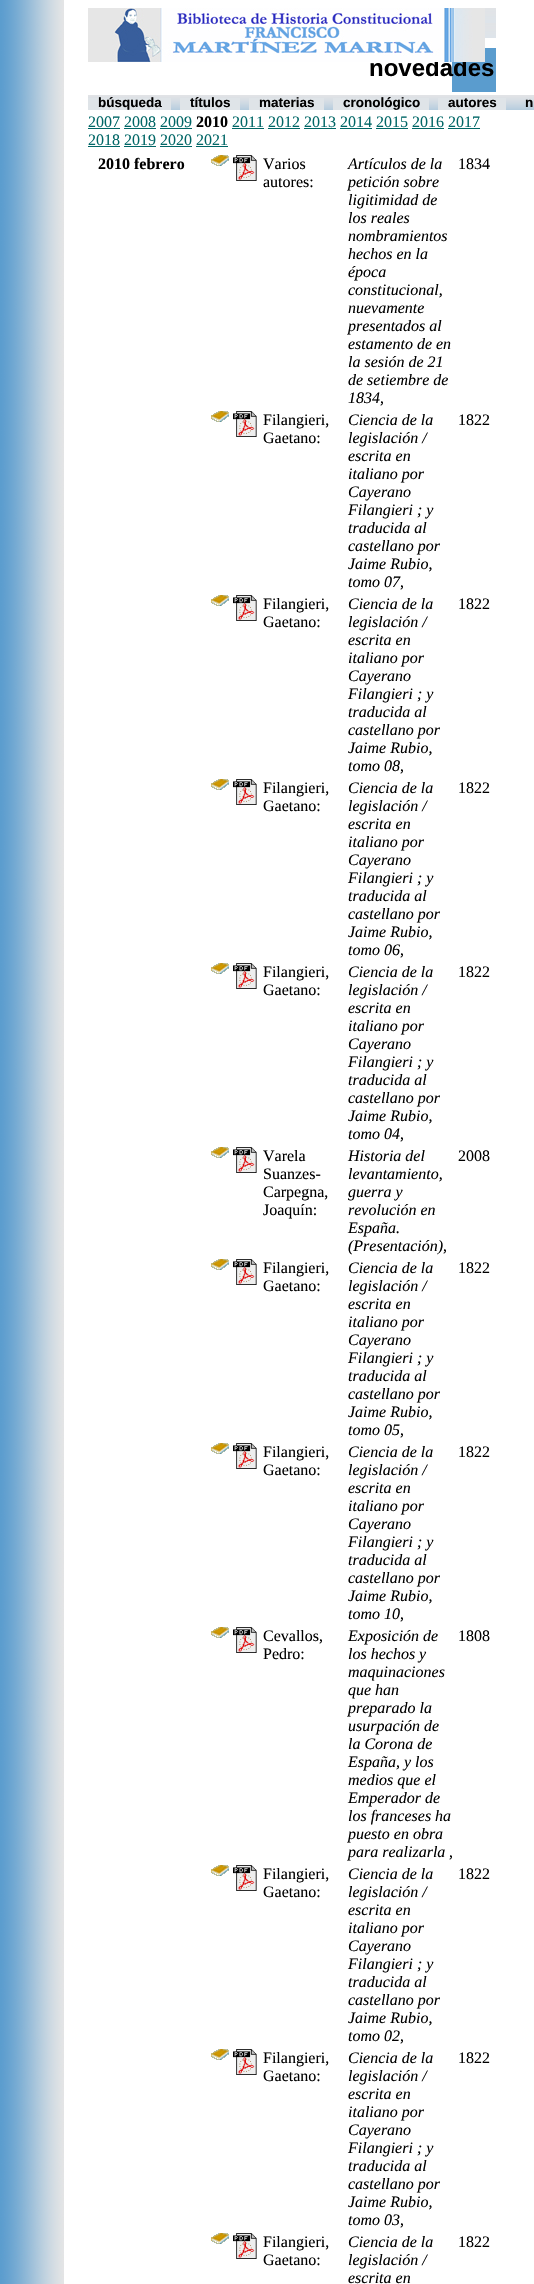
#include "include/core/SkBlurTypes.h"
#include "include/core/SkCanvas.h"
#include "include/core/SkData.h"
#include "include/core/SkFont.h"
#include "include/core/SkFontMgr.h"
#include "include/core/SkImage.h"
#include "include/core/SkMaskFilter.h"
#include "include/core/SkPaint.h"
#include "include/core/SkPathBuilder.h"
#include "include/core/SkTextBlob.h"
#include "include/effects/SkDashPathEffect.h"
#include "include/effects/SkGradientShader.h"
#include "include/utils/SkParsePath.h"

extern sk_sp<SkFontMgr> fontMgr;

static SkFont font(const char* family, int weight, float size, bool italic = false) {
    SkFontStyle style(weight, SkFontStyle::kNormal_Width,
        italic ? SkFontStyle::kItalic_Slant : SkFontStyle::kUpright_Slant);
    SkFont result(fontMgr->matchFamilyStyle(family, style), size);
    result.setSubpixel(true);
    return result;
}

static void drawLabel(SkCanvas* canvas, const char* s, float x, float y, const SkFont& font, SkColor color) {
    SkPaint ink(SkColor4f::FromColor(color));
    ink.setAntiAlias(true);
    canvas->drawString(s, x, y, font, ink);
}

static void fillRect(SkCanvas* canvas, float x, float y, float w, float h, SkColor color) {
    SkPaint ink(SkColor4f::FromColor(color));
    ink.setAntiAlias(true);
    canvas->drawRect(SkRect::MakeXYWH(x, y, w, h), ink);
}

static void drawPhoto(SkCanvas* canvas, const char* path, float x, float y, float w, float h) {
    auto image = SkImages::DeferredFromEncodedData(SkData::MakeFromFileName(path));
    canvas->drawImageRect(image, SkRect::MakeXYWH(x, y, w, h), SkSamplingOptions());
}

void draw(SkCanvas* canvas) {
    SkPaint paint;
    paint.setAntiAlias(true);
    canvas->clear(0xFFFFFFFF);
    drawPhoto(canvas, "assets/img1.png", 0, 0, 64, 2284);
    fillRect(canvas, 452, 48, 44, 44, 0xFF5A9CCE);
    SkFont font1 = font("Liberation Sans", 700, 24);
    drawLabel(canvas, "novedades", 369, 76, font1, 0xFF000000);
    drawPhoto(canvas, "assets/img2.png", 88, 8, 397, 54);
    drawPhoto(canvas, "assets/img3.png", 485, 8, 11, 15);
    drawPhoto(canvas, "assets/img3.png", 485, 23, 11, 15);
    drawPhoto(canvas, "assets/img4.png", 88, 95, 446, 15);
    fillRect(canvas, 88, 98, 83, 12, 0xFFDFE4E8);
    SkFont font2 = font("Liberation Sans", 700, 13.5f);
    drawLabel(canvas, "búsqueda", 98, 107, font2, 0xFF000000);
    fillRect(canvas, 180, 98, 60, 12, 0xFFDFE4E8);
    drawLabel(canvas, "títulos", 190, 107, font2, 0xFF000000);
    fillRect(canvas, 249, 98, 75, 12, 0xFFDFE4E8);
    drawLabel(canvas, "materias", 259, 107, font2, 0xFF000000);
    fillRect(canvas, 333, 98, 96, 12, 0xFFDFE4E8);
    drawLabel(canvas, "cronológico", 343, 107, font2, 0xFF000000);
    fillRect(canvas, 438, 98, 68, 12, 0xFFDFE4E8);
    drawLabel(canvas, "autores", 448, 107, font2, 0xFF000000);
    drawLabel(canvas, "n", 525, 107, font2, 0xFF000000);
    SkFont font3 = font("Liberation Serif", 400, 16);
    drawLabel(canvas, "2007 2008 2009", 88, 127, font3, 0xFF006666);
    fillRect(canvas, 88, 128, 32, 1, 0xFF006666);
    SkFont font4 = font("Liberation Serif", 700, 16);
    drawLabel(canvas, "2010", 196, 127, font4, 0xFF000000);
    drawLabel(canvas, "2011 2012 2013 2014 2015 2016 2017", 232, 127, font3, 0xFF006666);
    fillRect(canvas, 232, 128, 32, 1, 0xFF006666);
    fillRect(canvas, 124, 128, 32, 1, 0xFF006666);
    fillRect(canvas, 160, 128, 32, 1, 0xFF006666);
    fillRect(canvas, 268, 128, 32, 1, 0xFF006666);
    fillRect(canvas, 304, 128, 32, 1, 0xFF006666);
    fillRect(canvas, 340, 128, 32, 1, 0xFF006666);
    fillRect(canvas, 376, 128, 32, 1, 0xFF006666);
    fillRect(canvas, 412, 128, 32, 1, 0xFF006666);
    fillRect(canvas, 448, 128, 32, 1, 0xFF006666);
    drawLabel(canvas, "2018 2019 2020 2021", 88, 145, font3, 0xFF006666);
    fillRect(canvas, 88, 146, 32, 1, 0xFF006666);
    fillRect(canvas, 124, 146, 32, 1, 0xFF006666);
    fillRect(canvas, 160, 146, 32, 1, 0xFF006666);
    fillRect(canvas, 196, 146, 32, 1, 0xFF006666);
    drawLabel(canvas, "2010 febrero", 98, 169, font4, 0xFF000000);
    drawPhoto(canvas, "assets/img5.png", 211, 155, 18, 11);
    drawPhoto(canvas, "assets/img6.png", 233, 155, 24, 26);
    drawLabel(canvas, "Varios", 263, 169, font3, 0xFF000000);
    drawLabel(canvas, "autores:", 263, 187, font3, 0xFF000000);
    SkFont font5 = font("Liberation Serif", 400, 16, true);
    drawLabel(canvas, "Artículos de la", 348, 169, font5, 0xFF000000);
    drawLabel(canvas, "petición sobre", 348, 187, font5, 0xFF000000);
    drawLabel(canvas, "ligitimidad de", 348, 205, font5, 0xFF000000);
    drawLabel(canvas, "los reales", 348, 223, font5, 0xFF000000);
    drawLabel(canvas, "nombramientos", 348, 241, font5, 0xFF000000);
    drawLabel(canvas, "hechos en la", 348, 259, font5, 0xFF000000);
    drawLabel(canvas, "época", 348, 277, font5, 0xFF000000);
    drawLabel(canvas, "constitucional,", 348, 295, font5, 0xFF000000);
    drawLabel(canvas, "nuevamente", 348, 313, font5, 0xFF000000);
    drawLabel(canvas, "presentados al", 348, 331, font5, 0xFF000000);
    drawLabel(canvas, "estamento de en", 348, 349, font5, 0xFF000000);
    drawLabel(canvas, "la sesión de 21", 348, 367, font5, 0xFF000000);
    drawLabel(canvas, "de setiembre de", 348, 385, font5, 0xFF000000);
    drawLabel(canvas, "1834", 348, 403, font5, 0xFF000000);
    drawLabel(canvas, ",", 380, 403, font3, 0xFF000000);
    drawLabel(canvas, "1834", 458, 169, font3, 0xFF000000);
    drawPhoto(canvas, "assets/img5.png", 211, 411, 18, 11);
    drawPhoto(canvas, "assets/img6.png", 233, 411, 24, 26);
    drawLabel(canvas, "Filangieri,", 263, 425, font3, 0xFF000000);
    drawLabel(canvas, "Gaetano:", 263, 443, font3, 0xFF000000);
    drawLabel(canvas, "Ciencia de la", 348, 425, font5, 0xFF000000);
    drawLabel(canvas, "legislación /", 348, 443, font5, 0xFF000000);
    drawLabel(canvas, "escrita en", 348, 461, font5, 0xFF000000);
    drawLabel(canvas, "italiano por", 348, 479, font5, 0xFF000000);
    drawLabel(canvas, "Cayerano", 348, 497, font5, 0xFF000000);
    drawLabel(canvas, "Filangieri ; y", 348, 515, font5, 0xFF000000);
    drawLabel(canvas, "traducida al", 348, 533, font5, 0xFF000000);
    drawLabel(canvas, "castellano por", 348, 551, font5, 0xFF000000);
    drawLabel(canvas, "Jaime Rubio,", 348, 569, font5, 0xFF000000);
    drawLabel(canvas, "tomo 07", 348, 587, font5, 0xFF000000);
    drawLabel(canvas, ",", 400, 587, font3, 0xFF000000);
    drawLabel(canvas, "1822", 458, 425, font3, 0xFF000000);
    drawPhoto(canvas, "assets/img5.png", 211, 595, 18, 11);
    drawPhoto(canvas, "assets/img6.png", 233, 595, 24, 26);
    drawLabel(canvas, "Filangieri,", 263, 609, font3, 0xFF000000);
    drawLabel(canvas, "Gaetano:", 263, 627, font3, 0xFF000000);
    drawLabel(canvas, "Ciencia de la", 348, 609, font5, 0xFF000000);
    drawLabel(canvas, "legislación /", 348, 627, font5, 0xFF000000);
    drawLabel(canvas, "escrita en", 348, 645, font5, 0xFF000000);
    drawLabel(canvas, "italiano por", 348, 663, font5, 0xFF000000);
    drawLabel(canvas, "Cayerano", 348, 681, font5, 0xFF000000);
    drawLabel(canvas, "Filangieri ; y", 348, 699, font5, 0xFF000000);
    drawLabel(canvas, "traducida al", 348, 717, font5, 0xFF000000);
    drawLabel(canvas, "castellano por", 348, 735, font5, 0xFF000000);
    drawLabel(canvas, "Jaime Rubio,", 348, 753, font5, 0xFF000000);
    drawLabel(canvas, "tomo 08", 348, 771, font5, 0xFF000000);
    drawLabel(canvas, ",", 400, 771, font3, 0xFF000000);
    drawLabel(canvas, "1822", 458, 609, font3, 0xFF000000);
    drawPhoto(canvas, "assets/img5.png", 211, 779, 18, 11);
    drawPhoto(canvas, "assets/img6.png", 233, 779, 24, 26);
    drawLabel(canvas, "Filangieri,", 263, 793, font3, 0xFF000000);
    drawLabel(canvas, "Gaetano:", 263, 811, font3, 0xFF000000);
    drawLabel(canvas, "Ciencia de la", 348, 793, font5, 0xFF000000);
    drawLabel(canvas, "legislación /", 348, 811, font5, 0xFF000000);
    drawLabel(canvas, "escrita en", 348, 829, font5, 0xFF000000);
    drawLabel(canvas, "italiano por", 348, 847, font5, 0xFF000000);
    drawLabel(canvas, "Cayerano", 348, 865, font5, 0xFF000000);
    drawLabel(canvas, "Filangieri ; y", 348, 883, font5, 0xFF000000);
    drawLabel(canvas, "traducida al", 348, 901, font5, 0xFF000000);
    drawLabel(canvas, "castellano por", 348, 919, font5, 0xFF000000);
    drawLabel(canvas, "Jaime Rubio,", 348, 937, font5, 0xFF000000);
    drawLabel(canvas, "tomo 06", 348, 955, font5, 0xFF000000);
    drawLabel(canvas, ",", 400, 955, font3, 0xFF000000);
    drawLabel(canvas, "1822", 458, 793, font3, 0xFF000000);
    drawPhoto(canvas, "assets/img5.png", 211, 963, 18, 11);
    drawPhoto(canvas, "assets/img6.png", 233, 963, 24, 26);
    drawLabel(canvas, "Filangieri,", 263, 977, font3, 0xFF000000);
    drawLabel(canvas, "Gaetano:", 263, 995, font3, 0xFF000000);
    drawLabel(canvas, "Ciencia de la", 348, 977, font5, 0xFF000000);
    drawLabel(canvas, "legislación /", 348, 995, font5, 0xFF000000);
    drawLabel(canvas, "escrita en", 348, 1013, font5, 0xFF000000);
    drawLabel(canvas, "italiano por", 348, 1031, font5, 0xFF000000);
    drawLabel(canvas, "Cayerano", 348, 1049, font5, 0xFF000000);
    drawLabel(canvas, "Filangieri ; y", 348, 1067, font5, 0xFF000000);
    drawLabel(canvas, "traducida al", 348, 1085, font5, 0xFF000000);
    drawLabel(canvas, "castellano por", 348, 1103, font5, 0xFF000000);
    drawLabel(canvas, "Jaime Rubio,", 348, 1121, font5, 0xFF000000);
    drawLabel(canvas, "tomo 04", 348, 1139, font5, 0xFF000000);
    drawLabel(canvas, ",", 400, 1139, font3, 0xFF000000);
    drawLabel(canvas, "1822", 458, 977, font3, 0xFF000000);
    drawPhoto(canvas, "assets/img5.png", 211, 1147, 18, 11);
    drawPhoto(canvas, "assets/img6.png", 233, 1147, 24, 26);
    drawLabel(canvas, "Varela", 263, 1161, font3, 0xFF000000);
    drawLabel(canvas, "Suanzes-", 263, 1179, font3, 0xFF000000);
    drawLabel(canvas, "Carpegna,", 263, 1197, font3, 0xFF000000);
    drawLabel(canvas, "Joaquín:", 263, 1215, font3, 0xFF000000);
    drawLabel(canvas, "Historia del", 348, 1161, font5, 0xFF000000);
    drawLabel(canvas, "levantamiento,", 348, 1179, font5, 0xFF000000);
    drawLabel(canvas, "guerra y", 348, 1197, font5, 0xFF000000);
    drawLabel(canvas, "revolución en", 348, 1215, font5, 0xFF000000);
    drawLabel(canvas, "España.", 348, 1233, font5, 0xFF000000);
    drawLabel(canvas, "(Presentación)", 348, 1251, font5, 0xFF000000);
    drawLabel(canvas, ",", 443, 1251, font3, 0xFF000000);
    drawLabel(canvas, "2008", 458, 1161, font3, 0xFF000000);
    drawPhoto(canvas, "assets/img5.png", 211, 1259, 18, 11);
    drawPhoto(canvas, "assets/img6.png", 233, 1259, 24, 26);
    drawLabel(canvas, "Filangieri,", 263, 1273, font3, 0xFF000000);
    drawLabel(canvas, "Gaetano:", 263, 1291, font3, 0xFF000000);
    drawLabel(canvas, "Ciencia de la", 348, 1273, font5, 0xFF000000);
    drawLabel(canvas, "legislación /", 348, 1291, font5, 0xFF000000);
    drawLabel(canvas, "escrita en", 348, 1309, font5, 0xFF000000);
    drawLabel(canvas, "italiano por", 348, 1327, font5, 0xFF000000);
    drawLabel(canvas, "Cayerano", 348, 1345, font5, 0xFF000000);
    drawLabel(canvas, "Filangieri ; y", 348, 1363, font5, 0xFF000000);
    drawLabel(canvas, "traducida al", 348, 1381, font5, 0xFF000000);
    drawLabel(canvas, "castellano por", 348, 1399, font5, 0xFF000000);
    drawLabel(canvas, "Jaime Rubio,", 348, 1417, font5, 0xFF000000);
    drawLabel(canvas, "tomo 05", 348, 1435, font5, 0xFF000000);
    drawLabel(canvas, ",", 400, 1435, font3, 0xFF000000);
    drawLabel(canvas, "1822", 458, 1273, font3, 0xFF000000);
    drawPhoto(canvas, "assets/img5.png", 211, 1443, 18, 11);
    drawPhoto(canvas, "assets/img6.png", 233, 1443, 24, 26);
    drawLabel(canvas, "Filangieri,", 263, 1457, font3, 0xFF000000);
    drawLabel(canvas, "Gaetano:", 263, 1475, font3, 0xFF000000);
    drawLabel(canvas, "Ciencia de la", 348, 1457, font5, 0xFF000000);
    drawLabel(canvas, "legislación /", 348, 1475, font5, 0xFF000000);
    drawLabel(canvas, "escrita en", 348, 1493, font5, 0xFF000000);
    drawLabel(canvas, "italiano por", 348, 1511, font5, 0xFF000000);
    drawLabel(canvas, "Cayerano", 348, 1529, font5, 0xFF000000);
    drawLabel(canvas, "Filangieri ; y", 348, 1547, font5, 0xFF000000);
    drawLabel(canvas, "traducida al", 348, 1565, font5, 0xFF000000);
    drawLabel(canvas, "castellano por", 348, 1583, font5, 0xFF000000);
    drawLabel(canvas, "Jaime Rubio,", 348, 1601, font5, 0xFF000000);
    drawLabel(canvas, "tomo 10", 348, 1619, font5, 0xFF000000);
    drawLabel(canvas, ",", 400, 1619, font3, 0xFF000000);
    drawLabel(canvas, "1822", 458, 1457, font3, 0xFF000000);
    drawPhoto(canvas, "assets/img5.png", 211, 1627, 18, 11);
    drawPhoto(canvas, "assets/img6.png", 233, 1627, 24, 26);
    drawLabel(canvas, "Cevallos,", 263, 1641, font3, 0xFF000000);
    drawLabel(canvas, "Pedro:", 263, 1659, font3, 0xFF000000);
    drawLabel(canvas, "Exposición de", 348, 1641, font5, 0xFF000000);
    drawLabel(canvas, "los hechos y", 348, 1659, font5, 0xFF000000);
    drawLabel(canvas, "maquinaciones", 348, 1677, font5, 0xFF000000);
    drawLabel(canvas, "que han", 348, 1695, font5, 0xFF000000);
    drawLabel(canvas, "preparado la", 348, 1713, font5, 0xFF000000);
    drawLabel(canvas, "usurpación de", 348, 1731, font5, 0xFF000000);
    drawLabel(canvas, "la Corona de", 348, 1749, font5, 0xFF000000);
    drawLabel(canvas, "España, y los", 348, 1767, font5, 0xFF000000);
    drawLabel(canvas, "medios que el", 348, 1785, font5, 0xFF000000);
    drawLabel(canvas, "Emperador de", 348, 1803, font5, 0xFF000000);
    drawLabel(canvas, "los franceses ha", 348, 1821, font5, 0xFF000000);
    drawLabel(canvas, "puesto en obra", 348, 1839, font5, 0xFF000000);
    drawLabel(canvas, "para realizarla", 348, 1857, font5, 0xFF000000);
    drawLabel(canvas, ",", 449, 1857, font3, 0xFF000000);
    drawLabel(canvas, "1808", 458, 1641, font3, 0xFF000000);
    drawPhoto(canvas, "assets/img5.png", 211, 1865, 18, 11);
    drawPhoto(canvas, "assets/img6.png", 233, 1865, 24, 26);
    drawLabel(canvas, "Filangieri,", 263, 1879, font3, 0xFF000000);
    drawLabel(canvas, "Gaetano:", 263, 1897, font3, 0xFF000000);
    drawLabel(canvas, "Ciencia de la", 348, 1879, font5, 0xFF000000);
    drawLabel(canvas, "legislación /", 348, 1897, font5, 0xFF000000);
    drawLabel(canvas, "escrita en", 348, 1915, font5, 0xFF000000);
    drawLabel(canvas, "italiano por", 348, 1933, font5, 0xFF000000);
    drawLabel(canvas, "Cayerano", 348, 1951, font5, 0xFF000000);
    drawLabel(canvas, "Filangieri ; y", 348, 1969, font5, 0xFF000000);
    drawLabel(canvas, "traducida al", 348, 1987, font5, 0xFF000000);
    drawLabel(canvas, "castellano por", 348, 2005, font5, 0xFF000000);
    drawLabel(canvas, "Jaime Rubio,", 348, 2023, font5, 0xFF000000);
    drawLabel(canvas, "tomo 02", 348, 2041, font5, 0xFF000000);
    drawLabel(canvas, ",", 400, 2041, font3, 0xFF000000);
    drawLabel(canvas, "1822", 458, 1879, font3, 0xFF000000);
    drawPhoto(canvas, "assets/img5.png", 211, 2049, 18, 11);
    drawPhoto(canvas, "assets/img6.png", 233, 2049, 24, 26);
    drawLabel(canvas, "Filangieri,", 263, 2063, font3, 0xFF000000);
    drawLabel(canvas, "Gaetano:", 263, 2081, font3, 0xFF000000);
    drawLabel(canvas, "Ciencia de la", 348, 2063, font5, 0xFF000000);
    drawLabel(canvas, "legislación /", 348, 2081, font5, 0xFF000000);
    drawLabel(canvas, "escrita en", 348, 2099, font5, 0xFF000000);
    drawLabel(canvas, "italiano por", 348, 2117, font5, 0xFF000000);
    drawLabel(canvas, "Cayerano", 348, 2135, font5, 0xFF000000);
    drawLabel(canvas, "Filangieri ; y", 348, 2153, font5, 0xFF000000);
    drawLabel(canvas, "traducida al", 348, 2171, font5, 0xFF000000);
    drawLabel(canvas, "castellano por", 348, 2189, font5, 0xFF000000);
    drawLabel(canvas, "Jaime Rubio,", 348, 2207, font5, 0xFF000000);
    drawLabel(canvas, "tomo 03", 348, 2225, font5, 0xFF000000);
    drawLabel(canvas, ",", 400, 2225, font3, 0xFF000000);
    drawLabel(canvas, "1822", 458, 2063, font3, 0xFF000000);
    drawPhoto(canvas, "assets/img5.png", 211, 2233, 18, 11);
    drawPhoto(canvas, "assets/img6.png", 233, 2233, 24, 26);
    drawLabel(canvas, "Filangieri,", 263, 2247, font3, 0xFF000000);
    drawLabel(canvas, "Gaetano:", 263, 2265, font3, 0xFF000000);
    drawLabel(canvas, "Ciencia de la", 348, 2247, font5, 0xFF000000);
    drawLabel(canvas, "legislación /", 348, 2265, font5, 0xFF000000);
    drawLabel(canvas, "escrita en", 348, 2283, font5, 0xFF000000);
    drawLabel(canvas, "1822", 458, 2247, font3, 0xFF000000);
}
